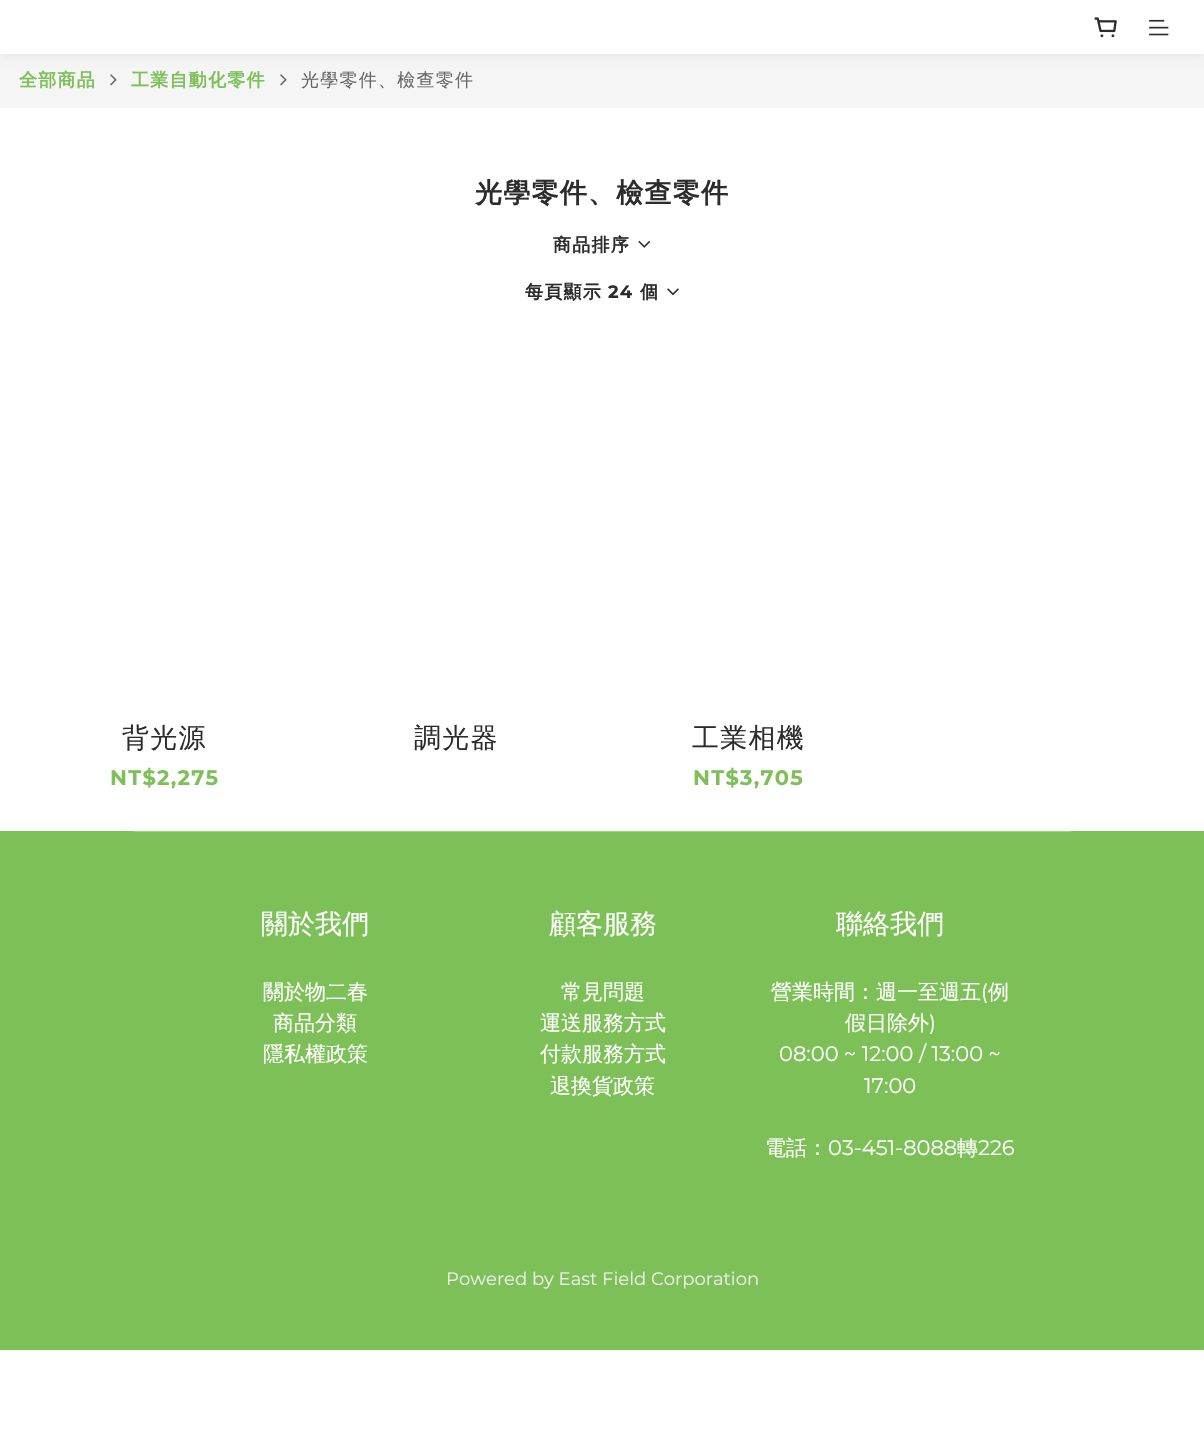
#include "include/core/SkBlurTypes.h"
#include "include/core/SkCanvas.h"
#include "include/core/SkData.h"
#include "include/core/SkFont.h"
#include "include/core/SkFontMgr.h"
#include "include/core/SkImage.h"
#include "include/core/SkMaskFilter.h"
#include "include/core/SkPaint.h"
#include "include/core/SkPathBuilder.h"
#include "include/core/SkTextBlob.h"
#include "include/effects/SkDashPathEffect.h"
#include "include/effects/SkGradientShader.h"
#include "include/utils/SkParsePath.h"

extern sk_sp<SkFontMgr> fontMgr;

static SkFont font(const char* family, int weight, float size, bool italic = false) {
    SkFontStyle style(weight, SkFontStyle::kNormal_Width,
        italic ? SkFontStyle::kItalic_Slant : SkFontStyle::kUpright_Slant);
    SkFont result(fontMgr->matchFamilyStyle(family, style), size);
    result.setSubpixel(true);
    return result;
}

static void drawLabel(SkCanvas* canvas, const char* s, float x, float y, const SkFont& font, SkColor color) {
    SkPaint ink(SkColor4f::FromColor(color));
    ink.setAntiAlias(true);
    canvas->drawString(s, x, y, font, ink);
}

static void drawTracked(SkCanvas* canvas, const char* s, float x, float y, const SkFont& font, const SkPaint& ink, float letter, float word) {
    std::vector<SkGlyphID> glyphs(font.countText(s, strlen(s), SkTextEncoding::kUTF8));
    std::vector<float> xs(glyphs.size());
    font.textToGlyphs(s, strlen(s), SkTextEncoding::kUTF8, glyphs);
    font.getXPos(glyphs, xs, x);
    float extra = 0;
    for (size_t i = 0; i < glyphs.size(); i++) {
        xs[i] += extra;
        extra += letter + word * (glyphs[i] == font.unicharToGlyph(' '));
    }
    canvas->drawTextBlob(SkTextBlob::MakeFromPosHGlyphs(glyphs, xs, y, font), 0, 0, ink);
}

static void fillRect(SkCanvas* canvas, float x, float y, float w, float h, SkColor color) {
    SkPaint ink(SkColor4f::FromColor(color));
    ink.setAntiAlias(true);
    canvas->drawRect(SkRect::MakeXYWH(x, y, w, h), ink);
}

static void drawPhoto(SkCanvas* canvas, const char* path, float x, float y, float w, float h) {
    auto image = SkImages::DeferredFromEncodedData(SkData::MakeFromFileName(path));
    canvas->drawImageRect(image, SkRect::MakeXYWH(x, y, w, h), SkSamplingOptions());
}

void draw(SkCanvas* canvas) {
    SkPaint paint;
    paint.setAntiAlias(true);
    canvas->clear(0xFFFFFFFF);
    fillRect(canvas, 0, 54, 1204, 54, 0xFFF5F5F5);
    paint.setColor(0x0F000000);
    paint.setMaskFilter(SkMaskFilter::MakeBlur(kNormal_SkBlurStyle, 4));
    canvas->drawRect(SkRect::MakeXYWH(0, 3, 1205, 53), paint);
    paint.setMaskFilter(nullptr);
    fillRect(canvas, 0, 0, 1204, 54, 0xFFFFFFFF);
    drawPhoto(canvas, "assets/img1.png", 1094, 17, 23, 21);
    drawPhoto(canvas, "assets/img2.png", 1149, 19, 20, 17);
    SkFont font1 = font("WenQuanYi Zen Hei", 700, 18);
    paint.setColor(0xFF7DC058);
    drawTracked(canvas, "全部商品", 19, 86, font1, paint, 1.25f, 0);
    drawPhoto(canvas, "assets/img3.png", 110, 74, 7, 12);
    drawTracked(canvas, "工業自動化零件", 131, 86, font1, paint, 1.25f, 0);
    drawPhoto(canvas, "assets/img3.png", 280, 74, 7, 12);
    SkFont font2 = font("WenQuanYi Zen Hei", 500, 18);
    paint.setColor(0xFF666666);
    drawTracked(canvas, "光學零件、檢查零件", 301, 86, font2, paint, 1.25f, 0);
    SkFont font3 = font("WenQuanYi Zen Hei", 700, 27);
    paint.setColor(0xFF2C2C2C);
    drawTracked(canvas, "光學零件、檢查零件", 475, 202, font3, paint, 1.25f, 0);
    drawTracked(canvas, "商品排序", 553, 251, font1, paint, 1.25f, 0);
    drawPhoto(canvas, "assets/img4.png", 638, 241, 12, 7);
    drawTracked(canvas, "每頁顯示", 525, 298, font1, paint, 1.25f, 0);
    SkFont font4 = font("Montserrat", 700, 18);
    drawTracked(canvas, "24", 608, 298, font4, paint, 1.25f, 0);
    drawTracked(canvas, "個", 640, 298, font1, paint, 1.25f, 0);
    drawPhoto(canvas, "assets/img5.png", 667, 288, 12, 8);
    SkFont font5 = font("WenQuanYi Zen Hei", 500, 27);
    drawTracked(canvas, "背光源", 122, 747, font5, paint, 1.25f, 0);
    SkFont font6 = font("Montserrat", 700, 21);
    paint.setColor(0xFF7DC058);
    drawTracked(canvas, "NT$2,275", 110, 785, font6, paint, 1.25f, 0);
    paint.setColor(0xFF2C2C2C);
    drawTracked(canvas, "調光器", 414, 747, font5, paint, 1.25f, 0);
    drawTracked(canvas, "工業相機", 692, 747, font5, paint, 1.25f, 0);
    paint.setColor(0xFF7DC058);
    drawTracked(canvas, "NT$3,705", 693, 785, font6, paint, 1.25f, 0);
    fillRect(canvas, 0, 831, 1204, 519, 0xFF7DC058);
    fillRect(canvas, 134, 831, 937, 1, 0xFFA1D287);
    drawLabel(canvas, "關於我們", 261, 933, font5, 0xFFFFFFFF);
    SkFont font7 = font("WenQuanYi Zen Hei", 500, 21);
    drawLabel(canvas, "關於物二春", 263, 999, font7, 0xFFFFFFFF);
    drawLabel(canvas, "商品分類", 273, 1030, font7, 0xFFFFFFFF);
    drawLabel(canvas, "隱私權政策", 263, 1061, font7, 0xFFFFFFFF);
    drawLabel(canvas, "顧客服務", 549, 933, font5, 0xFFFFFFFF);
    drawLabel(canvas, "常見問題", 561, 999, font7, 0xFFFFFFFF);
    drawLabel(canvas, "運送服務方式", 540, 1030, font7, 0xFFFFFFFF);
    drawLabel(canvas, "付款服務方式", 540, 1061, font7, 0xFFFFFFFF);
    drawLabel(canvas, "退換貨政策", 550, 1093, font7, 0xFFFFFFFF);
    drawLabel(canvas, "聯絡我們", 836, 933, font5, 0xFFFFFFFF);
    drawLabel(canvas, "營業時間：週一至週五", 771, 999, font7, 0xFFFFFFFF);
    SkFont font8 = font("Montserrat", 400, 21);
    drawLabel(canvas, "(", 981, 999, font8, 0xFFFFFFFF);
    drawLabel(canvas, "例", 988, 999, font7, 0xFFFFFFFF);
    drawLabel(canvas, "假日除外", 845, 1030, font7, 0xFFFFFFFF);
    drawLabel(canvas, ")", 929, 1030, font8, 0xFFFFFFFF);
    drawLabel(canvas, "08:00 ~ 12:00 / 13:00 ~", 779, 1061, font8, 0xFFFFFFFF);
    drawLabel(canvas, "17:00", 864, 1093, font8, 0xFFFFFFFF);
    drawLabel(canvas, "電話：", 765, 1155, font7, 0xFFFFFFFF);
    drawLabel(canvas, "03-451-8088", 828, 1155, font8, 0xFFFFFFFF);
    drawLabel(canvas, "轉", 957, 1155, font7, 0xFFFFFFFF);
    drawLabel(canvas, "226", 978, 1155, font8, 0xFFFFFFFF);
    SkFont font9 = font("Montserrat", 400, 18);
    drawLabel(canvas, "Powered by East Field Corporation", 446, 1285, font9, 0xFFEDEDED);
}
